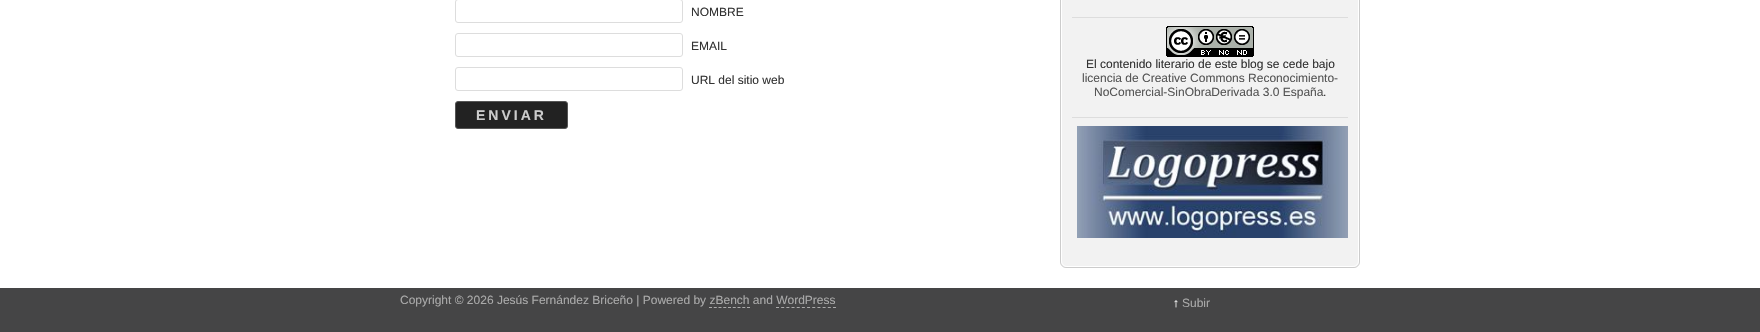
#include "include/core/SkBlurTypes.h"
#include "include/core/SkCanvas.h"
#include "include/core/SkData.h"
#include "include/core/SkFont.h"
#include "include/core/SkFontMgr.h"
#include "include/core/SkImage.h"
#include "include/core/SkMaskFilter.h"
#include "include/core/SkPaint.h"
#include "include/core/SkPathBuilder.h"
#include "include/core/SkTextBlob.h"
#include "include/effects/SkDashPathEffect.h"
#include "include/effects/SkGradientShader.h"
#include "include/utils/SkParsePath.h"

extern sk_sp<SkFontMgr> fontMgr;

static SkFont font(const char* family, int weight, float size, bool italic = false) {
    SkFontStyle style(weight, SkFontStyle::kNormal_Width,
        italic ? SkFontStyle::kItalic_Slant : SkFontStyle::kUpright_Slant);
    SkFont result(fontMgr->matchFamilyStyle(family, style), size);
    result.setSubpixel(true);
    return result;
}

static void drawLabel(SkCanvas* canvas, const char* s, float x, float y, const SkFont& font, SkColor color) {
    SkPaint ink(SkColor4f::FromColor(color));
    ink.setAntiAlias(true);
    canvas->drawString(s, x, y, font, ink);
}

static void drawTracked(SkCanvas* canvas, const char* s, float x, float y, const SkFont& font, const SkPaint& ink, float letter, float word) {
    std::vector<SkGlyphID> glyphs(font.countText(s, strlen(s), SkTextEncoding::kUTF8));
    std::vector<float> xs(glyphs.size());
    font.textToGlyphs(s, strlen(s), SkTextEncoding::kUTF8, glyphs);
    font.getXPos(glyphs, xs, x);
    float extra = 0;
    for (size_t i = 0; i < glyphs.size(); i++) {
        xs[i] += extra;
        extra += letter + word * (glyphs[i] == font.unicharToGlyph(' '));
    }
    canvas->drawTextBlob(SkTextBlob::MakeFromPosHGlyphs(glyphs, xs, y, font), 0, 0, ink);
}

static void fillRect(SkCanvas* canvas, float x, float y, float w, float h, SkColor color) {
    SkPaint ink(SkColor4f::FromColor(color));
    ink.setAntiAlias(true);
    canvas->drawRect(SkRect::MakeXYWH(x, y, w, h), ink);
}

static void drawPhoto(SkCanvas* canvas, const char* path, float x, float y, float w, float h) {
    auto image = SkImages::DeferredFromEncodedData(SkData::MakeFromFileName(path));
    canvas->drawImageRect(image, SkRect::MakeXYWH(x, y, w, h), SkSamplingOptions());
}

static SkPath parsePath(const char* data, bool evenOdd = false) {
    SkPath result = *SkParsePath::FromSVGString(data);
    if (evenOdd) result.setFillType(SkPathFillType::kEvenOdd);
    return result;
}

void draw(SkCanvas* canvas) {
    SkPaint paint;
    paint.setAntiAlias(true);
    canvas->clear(0xFFFFFFFF);
    paint.setStroke(true);
    paint.setStrokeWidth(1);
    paint.setColor(0xFFDDDDDD);
    canvas->drawRoundRect(SkRect::MakeXYWH(455.5f, -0.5f, 227, 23), 2.5f, 2.5f, paint);
    SkFont font1 = font("Liberation Sans", 400, 12);
    drawLabel(canvas, "NOMBRE", 691, 16, font1, 0xFF333333);
    canvas->drawRoundRect(SkRect::MakeXYWH(455.5f, 33.5f, 227, 23), 2.5f, 2.5f, paint);
    drawLabel(canvas, "EMAIL", 691, 50, font1, 0xFF333333);
    canvas->drawRoundRect(SkRect::MakeXYWH(455.5f, 67.5f, 227, 23), 2.5f, 2.5f, paint);
    drawLabel(canvas, "URL del sitio web", 691, 84, font1, 0xFF333333);
    paint.setStroke(false);
    paint.setColor(0xFF222222);
    canvas->drawRoundRect(SkRect::MakeXYWH(455.5f, 101.5f, 112, 27), 2.5f, 2.5f, paint);
    paint.setStroke(true);
    paint.setColor(0xFF555555);
    canvas->drawRoundRect(SkRect::MakeXYWH(455.5f, 101.5f, 112, 27), 2.5f, 2.5f, paint);
    SkFont font2 = font("Liberation Sans", 700, 14);
    paint.setStroke(false);
    paint.setColor(0xFFCCCCCC);
    drawTracked(canvas, "ENVIAR", 476, 120, font2, paint, 3, 0);
    paint.setColor(0xFFF2F2F2);
    canvas->drawRoundRect(SkRect::MakeXYWH(1060.5f, -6.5f, 299, 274), 5.5f, 5.5f, paint);
    paint.setStroke(true);
    paint.setColor(0xFFCCCCCC);
    canvas->drawRoundRect(SkRect::MakeXYWH(1060.5f, -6.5f, 299, 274), 5.5f, 5.5f, paint);
    paint.setColor(0xFFFFFFFF);
    canvas->drawRoundRect(SkRect::MakeXYWH(1061.5f, -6.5f, 297, 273), 5.5f, 5.5f, paint);
    fillRect(canvas, 1072, 17, 276, 1, 0xFFDDDDDD);
    drawPhoto(canvas, "assets/img1.png", 1166, 26, 88, 31);
    drawLabel(canvas, "El contenido literario de este blog se cede bajo", 1086, 68, font1, 0xFF333333);
    drawLabel(canvas, "licencia de Creative Commons Reconocimiento-", 1082, 82, font1, 0xFF555555);
    drawLabel(canvas, "NoComercial-SinObraDerivada 3.0 España", 1094, 96, font1, 0xFF555555);
    drawLabel(canvas, ".", 1323, 96, font1, 0xFF333333);
    fillRect(canvas, 1072, 117, 276, 1, 0xFFDDDDDD);
    drawPhoto(canvas, "assets/img2.png", 1077, 126, 271, 112);
    fillRect(canvas, 0, 288, 1760, 44, 0xFF454546);
    drawLabel(canvas, "Copyright © 2026 Jesús Fernández Briceño | Powered by zBench and WordPress", 400, 304, font1, 0xFFAAAAAA);
    paint.setColor(0xFFAAAAAA);
    paint.setPathEffect(SkDashPathEffect::Make({{3, 1.75f}}, 0));
    canvas->drawPath(parsePath("M709 307.5H750"), paint);
    paint.setPathEffect(nullptr);
    paint.setPathEffect(SkDashPathEffect::Make({{3, 2.18f}}, 0));
    canvas->drawPath(parsePath("M776 307.5H836"), paint);
    paint.setPathEffect(nullptr);
    SkFont font3 = font("Liberation Sans", 700, 12);
    drawLabel(canvas, "↑", 1173, 307, font3, 0xFFFAFAFA);
    drawLabel(canvas, "Subir", 1182, 307, font1, 0xFFAAAAAA);
}
